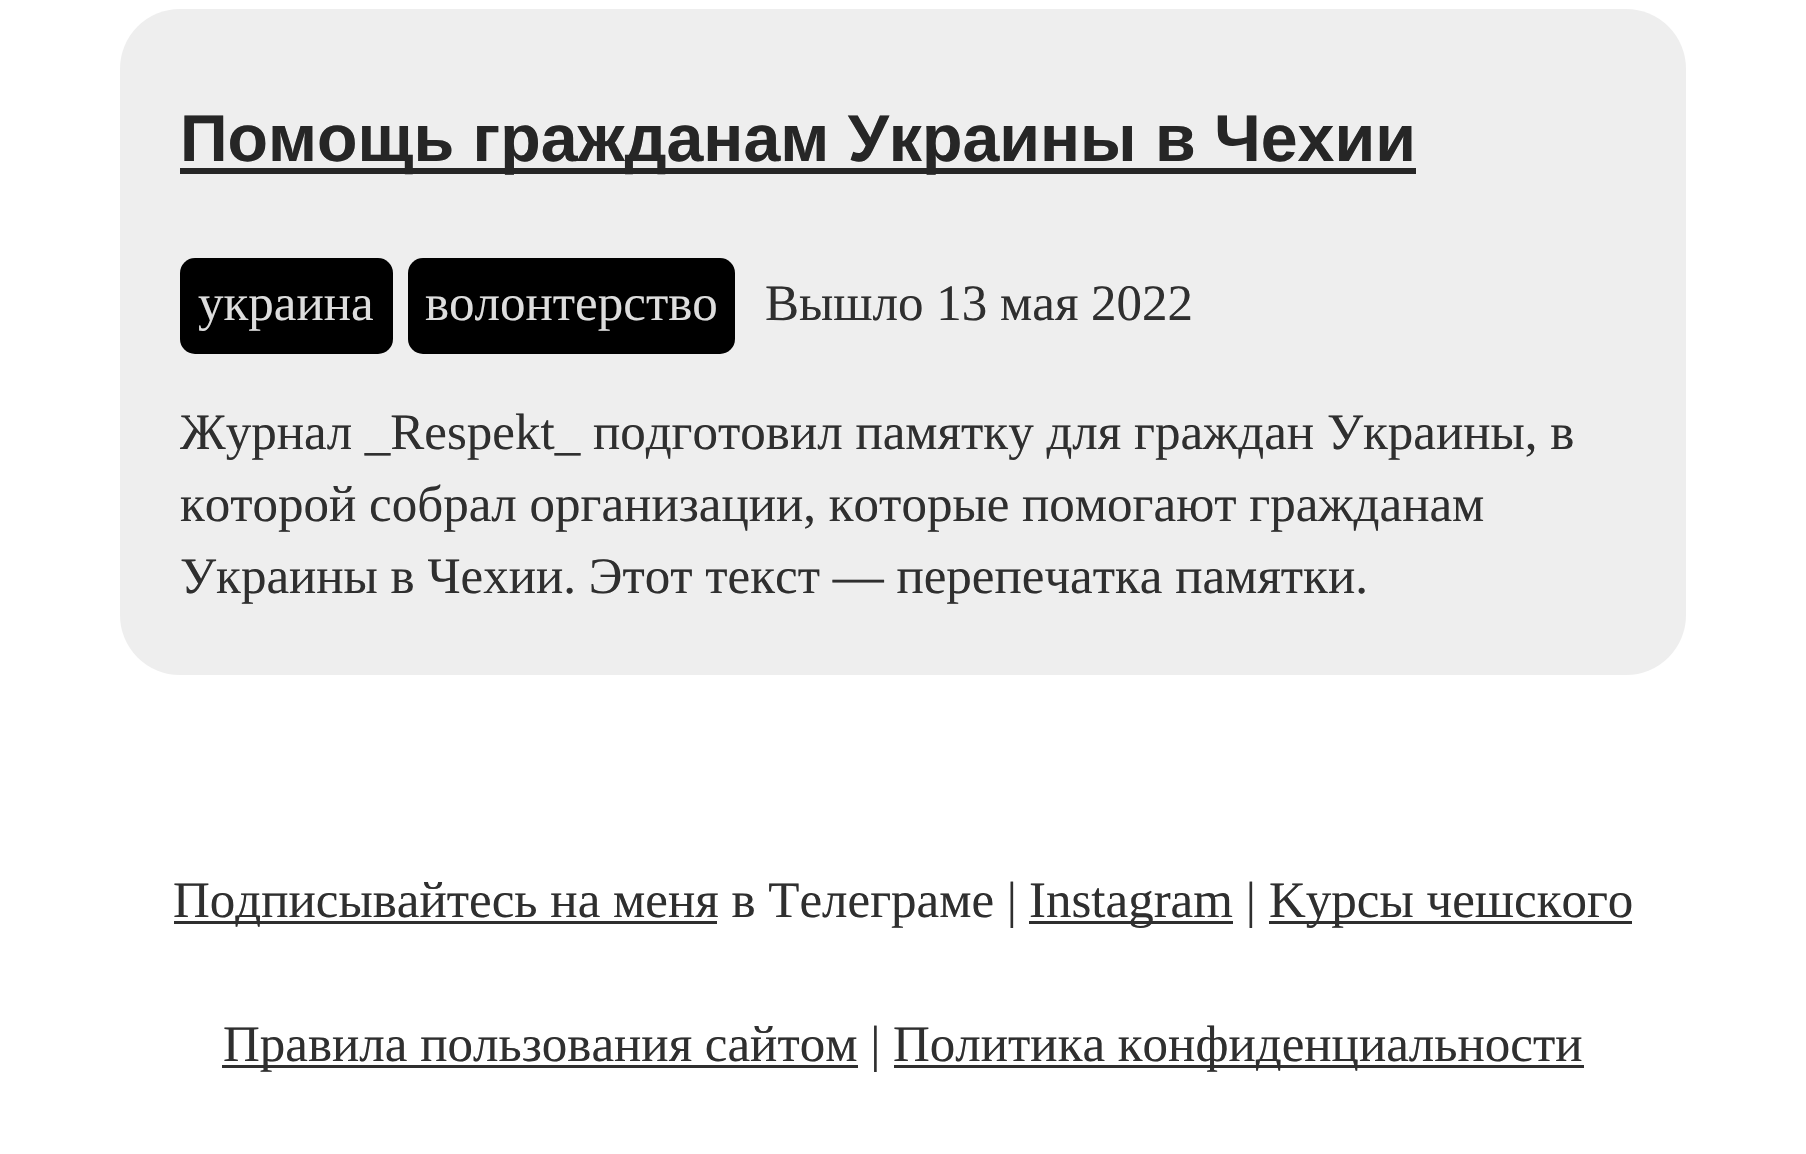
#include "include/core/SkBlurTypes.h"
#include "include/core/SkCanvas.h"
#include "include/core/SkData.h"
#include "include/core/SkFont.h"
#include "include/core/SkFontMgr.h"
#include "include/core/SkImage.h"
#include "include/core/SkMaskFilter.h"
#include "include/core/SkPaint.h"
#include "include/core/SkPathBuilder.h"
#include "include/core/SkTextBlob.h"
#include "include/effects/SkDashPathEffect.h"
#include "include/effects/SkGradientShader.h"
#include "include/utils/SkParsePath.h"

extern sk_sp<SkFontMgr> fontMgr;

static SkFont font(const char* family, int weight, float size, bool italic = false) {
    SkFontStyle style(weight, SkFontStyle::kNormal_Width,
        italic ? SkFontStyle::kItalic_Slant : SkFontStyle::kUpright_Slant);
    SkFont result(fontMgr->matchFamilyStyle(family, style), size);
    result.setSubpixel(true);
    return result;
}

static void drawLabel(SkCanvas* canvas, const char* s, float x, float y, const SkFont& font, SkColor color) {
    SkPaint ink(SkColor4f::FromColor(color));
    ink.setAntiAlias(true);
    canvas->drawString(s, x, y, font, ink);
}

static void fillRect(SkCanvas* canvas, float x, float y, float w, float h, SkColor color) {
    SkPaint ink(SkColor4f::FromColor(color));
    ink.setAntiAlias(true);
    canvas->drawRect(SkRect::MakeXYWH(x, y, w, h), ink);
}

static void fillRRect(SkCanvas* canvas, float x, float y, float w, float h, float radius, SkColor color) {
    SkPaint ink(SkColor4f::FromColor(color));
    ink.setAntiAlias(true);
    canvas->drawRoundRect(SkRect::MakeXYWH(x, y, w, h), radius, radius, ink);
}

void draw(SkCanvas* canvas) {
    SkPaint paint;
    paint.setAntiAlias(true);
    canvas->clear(0xFFFFFFFF);
    fillRRect(canvas, 120, 9, 1566, 666, 60, 0xFFEEEEEE);
    fillRect(canvas, 180, 168, 1236, 6, 0xFF262626);
    SkFont font1 = font("Liberation Sans", 700, 66.25f);
    drawLabel(canvas, "Помощь гражданам Украины в Чехии", 180, 161, font1, 0xFF262626);
    fillRRect(canvas, 180, 258, 213, 96, 15, 0xFF000000);
    SkFont font2 = font("Liberation Serif", 400, 51);
    drawLabel(canvas, "украина", 198, 320, font2, 0xFFDDDDDD);
    fillRRect(canvas, 408, 258, 327, 96, 15, 0xFF000000);
    drawLabel(canvas, "волонтерство", 425, 320, font2, 0xFFDDDDDD);
    drawLabel(canvas, "Вышло 13 мая 2022", 765, 320, font2, 0xFF2F2F2F);
    drawLabel(canvas, "Журнал _Respekt_ подготовил памятку для граждан Украины, в", 180, 449, font2, 0xFF2F2F2F);
    drawLabel(canvas, "которой собрал организации, которые помогают гражданам", 180, 521, font2, 0xFF2F2F2F);
    drawLabel(canvas, "Украины в Чехии. Этот текст — перепечатка памятки.", 180, 593, font2, 0xFF2F2F2F);
    fillRect(canvas, 174, 921, 543, 3, 0xFF2F2F2F);
    drawLabel(canvas, "Подписывайтесь на меня в Телеграме |", 173, 917, font2, 0xFF2F2F2F);
    fillRect(canvas, 1029, 921, 204, 3, 0xFF2F2F2F);
    drawLabel(canvas, "Instagram |", 1029, 917, font2, 0xFF2F2F2F);
    fillRect(canvas, 1269, 921, 363, 3, 0xFF2F2F2F);
    drawLabel(canvas, "Kурсы чешского", 1269, 917, font2, 0xFF2F2F2F);
    fillRect(canvas, 222, 1065, 636, 3, 0xFF2F2F2F);
    drawLabel(canvas, "Правила пользования сайтом |", 223, 1061, font2, 0xFF2F2F2F);
    fillRect(canvas, 894, 1065, 690, 3, 0xFF2F2F2F);
    drawLabel(canvas, "Политика конфиденциальности", 893, 1061, font2, 0xFF2F2F2F);
}
